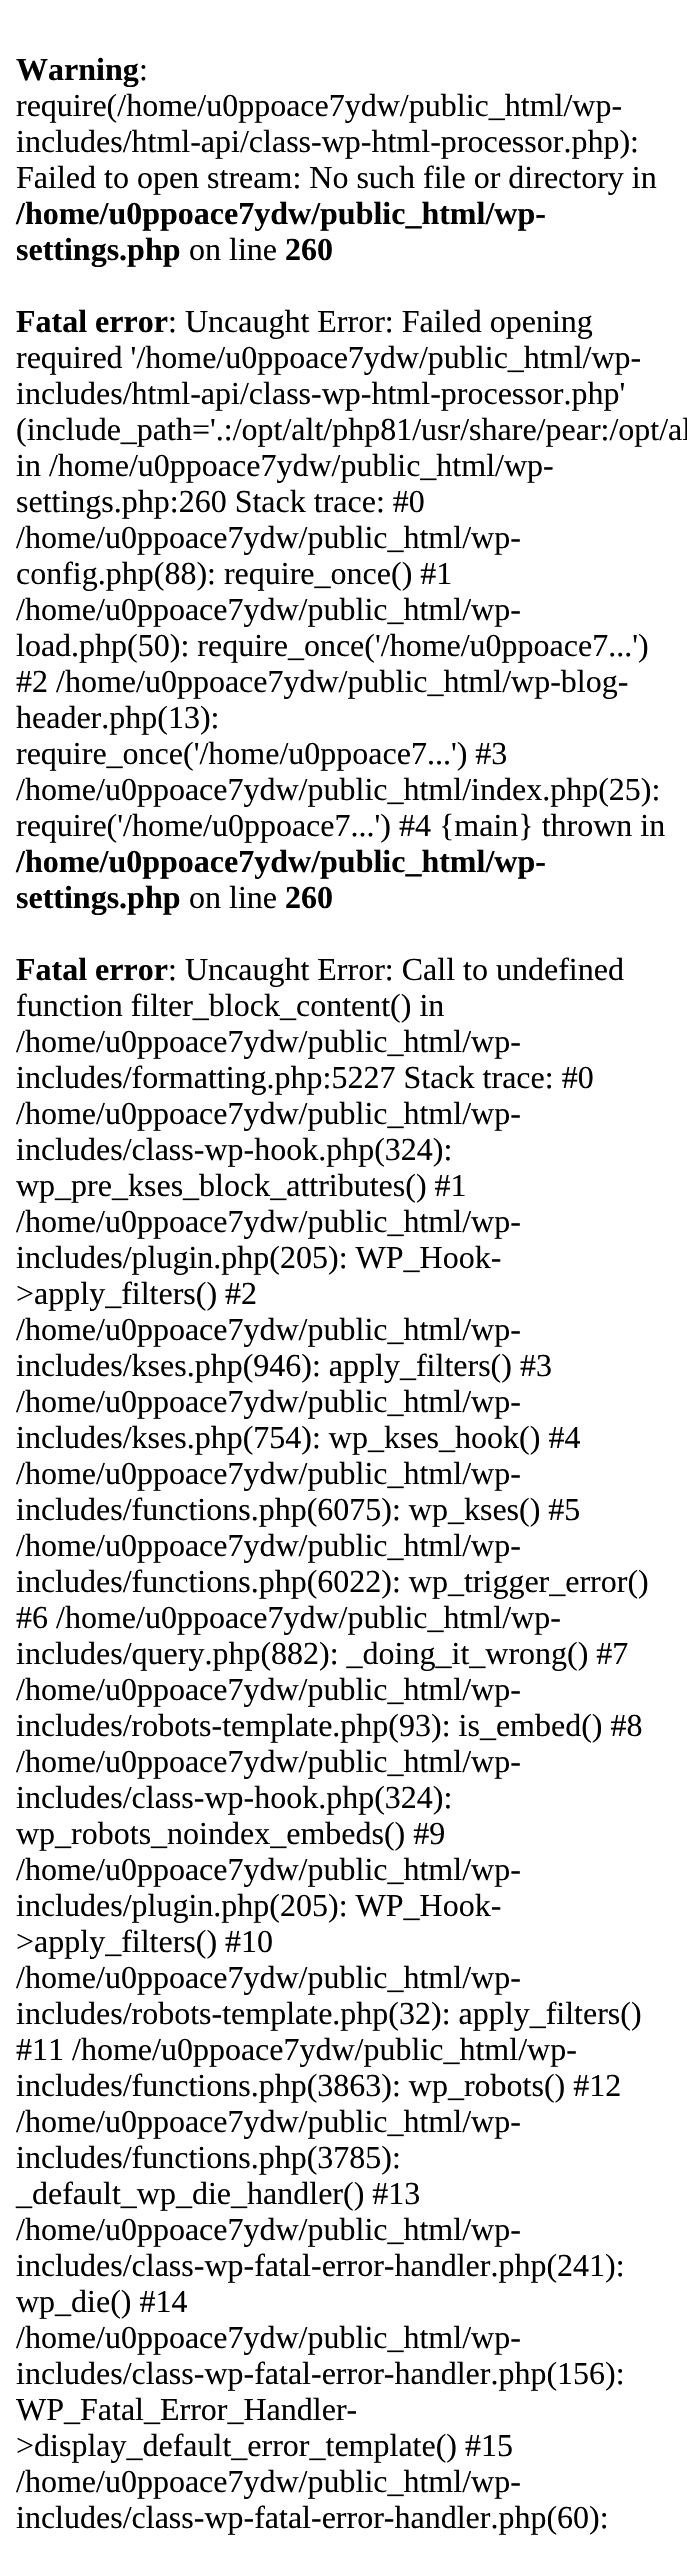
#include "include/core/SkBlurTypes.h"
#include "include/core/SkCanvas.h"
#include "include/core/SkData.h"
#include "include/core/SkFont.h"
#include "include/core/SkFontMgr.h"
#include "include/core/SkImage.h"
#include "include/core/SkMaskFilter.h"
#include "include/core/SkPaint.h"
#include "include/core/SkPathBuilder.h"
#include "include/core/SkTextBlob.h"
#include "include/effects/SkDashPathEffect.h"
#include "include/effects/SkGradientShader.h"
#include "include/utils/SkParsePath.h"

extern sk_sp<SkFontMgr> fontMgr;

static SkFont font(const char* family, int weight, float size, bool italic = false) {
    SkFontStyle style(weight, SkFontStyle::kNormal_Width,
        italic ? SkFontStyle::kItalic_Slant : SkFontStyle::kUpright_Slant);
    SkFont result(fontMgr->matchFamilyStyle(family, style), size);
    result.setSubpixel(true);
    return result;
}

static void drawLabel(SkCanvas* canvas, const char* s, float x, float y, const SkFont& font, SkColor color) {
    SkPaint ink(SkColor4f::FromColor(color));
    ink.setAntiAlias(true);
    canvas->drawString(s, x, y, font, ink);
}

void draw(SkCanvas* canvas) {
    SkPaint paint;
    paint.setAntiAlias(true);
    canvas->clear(0xFFFFFFFF);
    SkFont font1 = font("Liberation Serif", 700, 32);
    drawLabel(canvas, "Warning", 16, 80, font1, 0xFF000000);
    SkFont font2 = font("Liberation Serif", 400, 32);
    drawLabel(canvas, ":", 139, 80, font2, 0xFF000000);
    drawLabel(canvas, "require(/home/u0ppoace7ydw/public_html/wp-", 16, 116, font2, 0xFF000000);
    drawLabel(canvas, "includes/html-api/class-wp-html-processor.php):", 16, 152, font2, 0xFF000000);
    drawLabel(canvas, "Failed to open stream: No such file or directory in", 16, 188, font2, 0xFF000000);
    drawLabel(canvas, "/home/u0ppoace7ydw/public_html/wp-", 16, 224, font1, 0xFF000000);
    drawLabel(canvas, "settings.php", 16, 260, font1, 0xFF000000);
    drawLabel(canvas, "on line", 189, 260, font2, 0xFF000000);
    drawLabel(canvas, "260", 285, 260, font1, 0xFF000000);
    drawLabel(canvas, "Fatal error", 16, 332, font1, 0xFF000000);
    drawLabel(canvas, ": Uncaught Error: Failed opening", 168, 332, font2, 0xFF000000);
    drawLabel(canvas, "required '/home/u0ppoace7ydw/public_html/wp-", 16, 368, font2, 0xFF000000);
    drawLabel(canvas, "includes/html-api/class-wp-html-processor.php'", 16, 404, font2, 0xFF000000);
    drawLabel(canvas, "(include_path='.:/opt/alt/php81/usr/share/pear:/opt/al", 16, 440, font2, 0xFF000000);
    drawLabel(canvas, "in /home/u0ppoace7ydw/public_html/wp-", 16, 476, font2, 0xFF000000);
    drawLabel(canvas, "settings.php:260 Stack trace: #0", 16, 512, font2, 0xFF000000);
    drawLabel(canvas, "/home/u0ppoace7ydw/public_html/wp-", 16, 548, font2, 0xFF000000);
    drawLabel(canvas, "config.php(88): require_once() #1", 16, 584, font2, 0xFF000000);
    drawLabel(canvas, "/home/u0ppoace7ydw/public_html/wp-", 16, 620, font2, 0xFF000000);
    drawLabel(canvas, "load.php(50): require_once('/home/u0ppoace7...')", 16, 656, font2, 0xFF000000);
    drawLabel(canvas, "#2 /home/u0ppoace7ydw/public_html/wp-blog-", 16, 692, font2, 0xFF000000);
    drawLabel(canvas, "header.php(13):", 16, 728, font2, 0xFF000000);
    drawLabel(canvas, "require_once('/home/u0ppoace7...') #3", 16, 764, font2, 0xFF000000);
    drawLabel(canvas, "/home/u0ppoace7ydw/public_html/index.php(25):", 16, 800, font2, 0xFF000000);
    drawLabel(canvas, "require('/home/u0ppoace7...') #4 {main} thrown in", 16, 836, font2, 0xFF000000);
    drawLabel(canvas, "/home/u0ppoace7ydw/public_html/wp-", 16, 872, font1, 0xFF000000);
    drawLabel(canvas, "settings.php", 16, 908, font1, 0xFF000000);
    drawLabel(canvas, "on line", 189, 908, font2, 0xFF000000);
    drawLabel(canvas, "260", 285, 908, font1, 0xFF000000);
    drawLabel(canvas, "Fatal error", 16, 980, font1, 0xFF000000);
    drawLabel(canvas, ": Uncaught Error: Call to undefined", 168, 980, font2, 0xFF000000);
    drawLabel(canvas, "function filter_block_content() in", 16, 1016, font2, 0xFF000000);
    drawLabel(canvas, "/home/u0ppoace7ydw/public_html/wp-", 16, 1052, font2, 0xFF000000);
    drawLabel(canvas, "includes/formatting.php:5227 Stack trace: #0", 16, 1088, font2, 0xFF000000);
    drawLabel(canvas, "/home/u0ppoace7ydw/public_html/wp-", 16, 1124, font2, 0xFF000000);
    drawLabel(canvas, "includes/class-wp-hook.php(324):", 16, 1160, font2, 0xFF000000);
    drawLabel(canvas, "wp_pre_kses_block_attributes() #1", 16, 1196, font2, 0xFF000000);
    drawLabel(canvas, "/home/u0ppoace7ydw/public_html/wp-", 16, 1232, font2, 0xFF000000);
    drawLabel(canvas, "includes/plugin.php(205): WP_Hook-", 16, 1268, font2, 0xFF000000);
    drawLabel(canvas, ">apply_filters() #2", 16, 1304, font2, 0xFF000000);
    drawLabel(canvas, "/home/u0ppoace7ydw/public_html/wp-", 16, 1340, font2, 0xFF000000);
    drawLabel(canvas, "includes/kses.php(946): apply_filters() #3", 16, 1376, font2, 0xFF000000);
    drawLabel(canvas, "/home/u0ppoace7ydw/public_html/wp-", 16, 1412, font2, 0xFF000000);
    drawLabel(canvas, "includes/kses.php(754): wp_kses_hook() #4", 16, 1448, font2, 0xFF000000);
    drawLabel(canvas, "/home/u0ppoace7ydw/public_html/wp-", 16, 1484, font2, 0xFF000000);
    drawLabel(canvas, "includes/functions.php(6075): wp_kses() #5", 16, 1520, font2, 0xFF000000);
    drawLabel(canvas, "/home/u0ppoace7ydw/public_html/wp-", 16, 1556, font2, 0xFF000000);
    drawLabel(canvas, "includes/functions.php(6022): wp_trigger_error()", 16, 1592, font2, 0xFF000000);
    drawLabel(canvas, "#6 /home/u0ppoace7ydw/public_html/wp-", 16, 1628, font2, 0xFF000000);
    drawLabel(canvas, "includes/query.php(882): _doing_it_wrong() #7", 16, 1664, font2, 0xFF000000);
    drawLabel(canvas, "/home/u0ppoace7ydw/public_html/wp-", 16, 1700, font2, 0xFF000000);
    drawLabel(canvas, "includes/robots-template.php(93): is_embed() #8", 16, 1736, font2, 0xFF000000);
    drawLabel(canvas, "/home/u0ppoace7ydw/public_html/wp-", 16, 1772, font2, 0xFF000000);
    drawLabel(canvas, "includes/class-wp-hook.php(324):", 16, 1808, font2, 0xFF000000);
    drawLabel(canvas, "wp_robots_noindex_embeds() #9", 16, 1844, font2, 0xFF000000);
    drawLabel(canvas, "/home/u0ppoace7ydw/public_html/wp-", 16, 1880, font2, 0xFF000000);
    drawLabel(canvas, "includes/plugin.php(205): WP_Hook-", 16, 1916, font2, 0xFF000000);
    drawLabel(canvas, ">apply_filters() #10", 16, 1952, font2, 0xFF000000);
    drawLabel(canvas, "/home/u0ppoace7ydw/public_html/wp-", 16, 1988, font2, 0xFF000000);
    drawLabel(canvas, "includes/robots-template.php(32): apply_filters()", 16, 2024, font2, 0xFF000000);
    drawLabel(canvas, "#11 /home/u0ppoace7ydw/public_html/wp-", 16, 2060, font2, 0xFF000000);
    drawLabel(canvas, "includes/functions.php(3863): wp_robots() #12", 16, 2096, font2, 0xFF000000);
    drawLabel(canvas, "/home/u0ppoace7ydw/public_html/wp-", 16, 2132, font2, 0xFF000000);
    drawLabel(canvas, "includes/functions.php(3785):", 16, 2168, font2, 0xFF000000);
    drawLabel(canvas, "_default_wp_die_handler() #13", 16, 2204, font2, 0xFF000000);
    drawLabel(canvas, "/home/u0ppoace7ydw/public_html/wp-", 16, 2240, font2, 0xFF000000);
    drawLabel(canvas, "includes/class-wp-fatal-error-handler.php(241):", 16, 2276, font2, 0xFF000000);
    drawLabel(canvas, "wp_die() #14", 16, 2312, font2, 0xFF000000);
    drawLabel(canvas, "/home/u0ppoace7ydw/public_html/wp-", 16, 2348, font2, 0xFF000000);
    drawLabel(canvas, "includes/class-wp-fatal-error-handler.php(156):", 16, 2384, font2, 0xFF000000);
    drawLabel(canvas, "WP_Fatal_Error_Handler-", 16, 2420, font2, 0xFF000000);
    drawLabel(canvas, ">display_default_error_template() #15", 16, 2456, font2, 0xFF000000);
    drawLabel(canvas, "/home/u0ppoace7ydw/public_html/wp-", 16, 2492, font2, 0xFF000000);
    drawLabel(canvas, "includes/class-wp-fatal-error-handler.php(60):", 16, 2528, font2, 0xFF000000);
}
